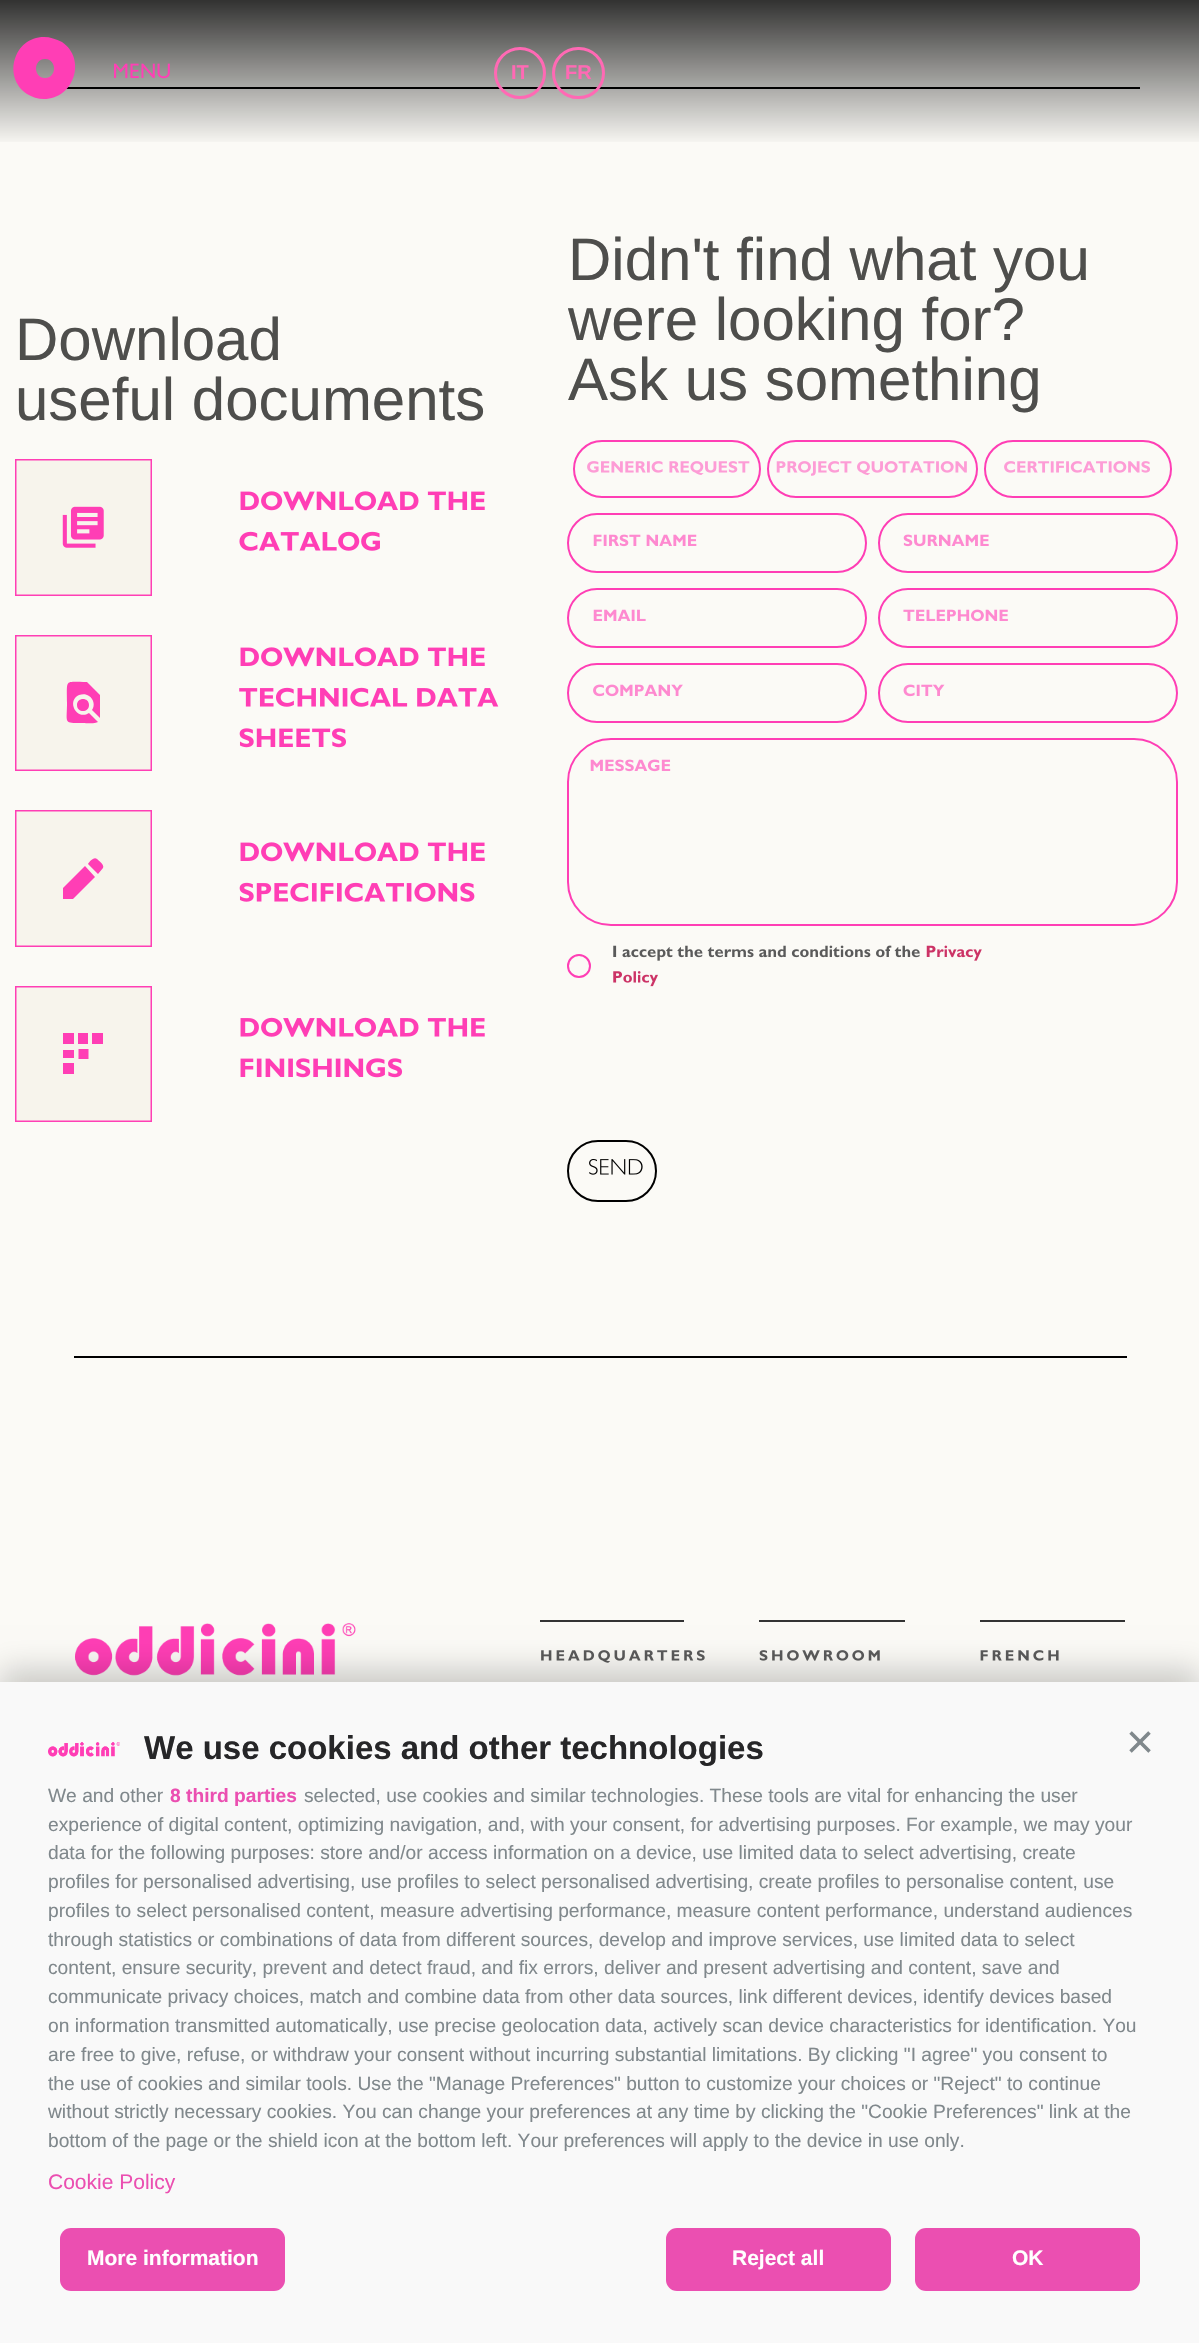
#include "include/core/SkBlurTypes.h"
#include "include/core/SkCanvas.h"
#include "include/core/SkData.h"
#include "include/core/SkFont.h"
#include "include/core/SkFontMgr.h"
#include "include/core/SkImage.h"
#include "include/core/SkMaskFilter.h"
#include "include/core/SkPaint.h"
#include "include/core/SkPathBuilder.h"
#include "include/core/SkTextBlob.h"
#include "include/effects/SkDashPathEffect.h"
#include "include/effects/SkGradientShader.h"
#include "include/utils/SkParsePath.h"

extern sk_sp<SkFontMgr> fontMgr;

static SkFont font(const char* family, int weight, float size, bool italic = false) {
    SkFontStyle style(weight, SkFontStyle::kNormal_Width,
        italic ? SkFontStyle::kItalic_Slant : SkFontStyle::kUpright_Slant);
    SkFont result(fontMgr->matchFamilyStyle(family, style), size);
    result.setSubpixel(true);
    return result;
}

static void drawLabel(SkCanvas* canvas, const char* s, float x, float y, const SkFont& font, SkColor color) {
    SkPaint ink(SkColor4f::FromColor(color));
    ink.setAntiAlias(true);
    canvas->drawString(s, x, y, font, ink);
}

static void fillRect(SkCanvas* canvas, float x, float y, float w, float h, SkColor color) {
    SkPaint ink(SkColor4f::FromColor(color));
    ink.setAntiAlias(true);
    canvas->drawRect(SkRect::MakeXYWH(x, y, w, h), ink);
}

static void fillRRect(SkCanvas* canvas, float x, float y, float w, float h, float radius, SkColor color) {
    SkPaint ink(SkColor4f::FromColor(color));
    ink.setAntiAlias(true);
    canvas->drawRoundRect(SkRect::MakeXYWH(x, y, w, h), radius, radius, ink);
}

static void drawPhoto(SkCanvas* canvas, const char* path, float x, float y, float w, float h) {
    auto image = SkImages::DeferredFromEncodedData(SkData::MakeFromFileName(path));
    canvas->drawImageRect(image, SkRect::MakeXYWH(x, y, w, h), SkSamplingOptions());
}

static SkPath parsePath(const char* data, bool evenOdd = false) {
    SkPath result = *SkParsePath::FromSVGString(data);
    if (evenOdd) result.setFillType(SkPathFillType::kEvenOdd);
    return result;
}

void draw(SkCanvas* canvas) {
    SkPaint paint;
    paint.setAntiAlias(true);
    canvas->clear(0xFFFBFAF6);
    fillRect(canvas, 60, 87, 1080, 2, 0xFF000000);
    {
        const SkColor colors[] = {0xCC000000, 0x00000000};
        const float stops[] = {0, 1};
        const SkPoint ends[] = {{600, 0}, {600, 146}};
        paint.setShader(SkGradientShader::MakeLinear(ends, colors, stops, 2, SkTileMode::kClamp));
        paint.setAlpha(255);
    }
    canvas->drawRect(SkRect::MakeXYWH(0, 0, 1199, 142), paint);
    paint.setShader(nullptr);
    paint.setColor(0xFFFF3EB5);
    canvas->drawPath(parsePath("M44 99C38 99 32 97 27 94C2 77 14 37 44 37C50 37 56 39 62 42C87 59 74 99 44 99ZM45 59C33 59 33 78 45 78C57 78 57 59 45 59Z"), paint);
    drawPhoto(canvas, "assets/img1.png", 114, 63, 56, 16);
    paint.setStroke(true);
    paint.setStrokeWidth(3);
    paint.setColor(0xFFFF69B4);
    canvas->drawCircle(520, 73, 24.5f, paint);
    SkFont font1 = font("Liberation Sans", 700, 20);
    drawLabel(canvas, "IT", 511, 79, font1, 0xFFFF69B4);
    canvas->drawRoundRect(SkRect::MakeXYWH(553.5f, 48.5f, 50, 49), 24.5f, 24.5f, paint);
    drawLabel(canvas, "FR", 565, 79, font1, 0xFFFF69B4);
    SkFont font2 = font("Liberation Sans", 400, 60);
    drawLabel(canvas, "Download", 15, 360, font2, 0xFF4E4E4C);
    drawLabel(canvas, "useful documents", 15, 420, font2, 0xFF4E4E4C);
    drawPhoto(canvas, "assets/img2.png", 15, 459, 137, 137);
    drawPhoto(canvas, "assets/img3.png", 240, 491, 245, 20);
    drawPhoto(canvas, "assets/img4.png", 239, 531, 141, 20);
    paint.setStroke(false);
    paint.setColor(0xFFF7F4EC);
    canvas->drawRect(SkRect::MakeXYWH(15.75f, 635.75f, 135.5f, 134.5f), paint);
    paint.setStroke(true);
    paint.setStrokeWidth(1.5f);
    paint.setColor(0xFFFF3EB5);
    canvas->drawRect(SkRect::MakeXYWH(15.75f, 635.75f, 135.5f, 134.5f), paint);
    paint.setStroke(false);
    canvas->drawPath(parsePath("M100 718V695L87 682C64 682 67 678 67 703C67 724 63 723 83 723C86 723 95 724 98 722L89 713C77 721 66 701 79 695C83 694 86 694 89 696C94 699 95 706 92 710ZM77 705C77 713 89 713 89 705C89 697 77 697 77 705Z"), paint);
    drawPhoto(canvas, "assets/img3.png", 240, 647, 245, 20);
    drawPhoto(canvas, "assets/img5.png", 239, 687, 260, 20);
    drawPhoto(canvas, "assets/img6.png", 239, 728, 107, 20);
    paint.setColor(0xFFF7F4EC);
    canvas->drawRect(SkRect::MakeXYWH(15.75f, 810.75f, 135.5f, 135.5f), paint);
    paint.setStroke(true);
    paint.setColor(0xFFFF3EB5);
    canvas->drawRect(SkRect::MakeXYWH(15.75f, 810.75f, 135.5f, 135.5f), paint);
    paint.setStroke(false);
    canvas->drawPath(parsePath("M63 899H73L95 877L85 866L63 888ZM97 859C94 856 89 862 88 864L98 874L103 868C105 865 98 860 97 859Z"), paint);
    drawPhoto(canvas, "assets/img3.png", 240, 842, 245, 20);
    drawPhoto(canvas, "assets/img7.png", 239, 882, 236, 20);
    paint.setColor(0xFFF7F4EC);
    canvas->drawRect(SkRect::MakeXYWH(15.75f, 986.75f, 135.5f, 134.5f), paint);
    paint.setStroke(true);
    paint.setColor(0xFFFF3EB5);
    canvas->drawRect(SkRect::MakeXYWH(15.75f, 986.75f, 135.5f, 134.5f), paint);
    fillRect(canvas, 78, 1033, 10, 11, 0xFFFF3EB5);
    fillRect(canvas, 63, 1063, 11, 11, 0xFFFF3EB5);
    fillRect(canvas, 63, 1050, 11, 8, 0xFFFF3EB5);
    fillRect(canvas, 63, 1033, 11, 11, 0xFFFF3EB5);
    paint.setStroke(false);
    canvas->drawPath(parsePath("M88.5 1055V1049H78.5V1059H88.5Z"), paint);
    fillRect(canvas, 92, 1033, 11, 11, 0xFFFF3EB5);
    drawPhoto(canvas, "assets/img8.png", 240, 1017, 245, 20);
    drawPhoto(canvas, "assets/img9.png", 240, 1058, 163, 20);
    drawLabel(canvas, "Didn't find what you", 568, 280, font2, 0xFF4E4E4C);
    drawLabel(canvas, "were looking for?", 568, 340, font2, 0xFF4E4E4C);
    drawLabel(canvas, "Ask us something", 568, 400, font2, 0xFF4E4E4C);
    paint.setStroke(true);
    paint.setStrokeWidth(2);
    canvas->drawRoundRect(SkRect::MakeXYWH(574, 441, 186, 56), 28, 28, paint);
    drawPhoto(canvas, "assets/img10.png", 587, 461, 163, 14);
    canvas->drawRoundRect(SkRect::MakeXYWH(768, 441, 209, 56), 28, 28, paint);
    drawPhoto(canvas, "assets/img11.png", 776, 461, 191, 15);
    canvas->drawRoundRect(SkRect::MakeXYWH(985, 441, 186, 56), 28, 28, paint);
    drawPhoto(canvas, "assets/img12.png", 1004, 461, 146, 12);
    canvas->drawRoundRect(SkRect::MakeXYWH(568, 514, 298, 58), 29, 29, paint);
    drawPhoto(canvas, "assets/img13.png", 593, 534, 104, 13);
    canvas->drawRoundRect(SkRect::MakeXYWH(879, 514, 298, 58), 29, 29, paint);
    drawPhoto(canvas, "assets/img14.png", 903, 534, 86, 13);
    canvas->drawRoundRect(SkRect::MakeXYWH(568, 589, 298, 58), 29, 29, paint);
    drawPhoto(canvas, "assets/img15.png", 593, 609, 53, 12);
    canvas->drawRoundRect(SkRect::MakeXYWH(879, 589, 298, 58), 29, 29, paint);
    drawPhoto(canvas, "assets/img16.png", 903, 609, 105, 13);
    canvas->drawRoundRect(SkRect::MakeXYWH(568, 664, 298, 58), 29, 29, paint);
    drawPhoto(canvas, "assets/img17.png", 593, 684, 90, 13);
    canvas->drawRoundRect(SkRect::MakeXYWH(879, 664, 298, 58), 29, 29, paint);
    drawPhoto(canvas, "assets/img18.png", 903, 684, 42, 13);
    canvas->drawRoundRect(SkRect::MakeXYWH(568, 739, 609, 186), 43, 43, paint);
    drawPhoto(canvas, "assets/img19.png", 590, 759, 81, 13);
    canvas->drawCircle(579, 966, 11, paint);
    drawPhoto(canvas, "assets/img20.png", 613, 945, 307, 16);
    drawPhoto(canvas, "assets/img21.png", 926, 945, 56, 16);
    drawPhoto(canvas, "assets/img22.png", 613, 971, 45, 16);
    paint.setColor(0xFF000000);
    canvas->drawRoundRect(SkRect::MakeXYWH(568, 1141, 88, 60), 30, 30, paint);
    drawPhoto(canvas, "assets/img23.png", 589, 1159, 54, 16);
    fillRect(canvas, 74, 1356, 1053, 2, 0xFF000000);
    drawPhoto(canvas, "assets/img24.png", 75, 1623, 281, 53);
    fillRect(canvas, 540, 1620, 144, 2, 0xFF333333);
    drawPhoto(canvas, "assets/img25.png", 541, 1650, 164, 13);
    fillRect(canvas, 759, 1620, 146, 2, 0xFF333333);
    drawPhoto(canvas, "assets/img26.png", 759, 1650, 121, 11);
    fillRect(canvas, 980, 1620, 145, 2, 0xFF333333);
    drawPhoto(canvas, "assets/img27.png", 980, 1650, 79, 11);
    paint.setStroke(false);
    paint.setColor(0x33000000);
    paint.setMaskFilter(SkMaskFilter::MakeBlur(kNormal_SkBlurStyle, 15));
    canvas->drawRect(SkRect::MakeXYWH(0, 1670, 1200, 661), paint);
    paint.setMaskFilter(nullptr);
    fillRect(canvas, 0, 1682, 1199, 661, 0xFFF9F9F9);
    drawPhoto(canvas, "assets/img28.png", 48, 1742, 72, 15);
    SkFont font3 = font("Liberation Sans", 700, 33);
    drawLabel(canvas, "We use cookies and other technologies", 144, 1759, font3, 0xFF262628);
    SkFont font4 = font("Liberation Sans", 400, 48);
    drawLabel(canvas, "×", 1126, 1758, font4, 0xFF80888C);
    SkFont font5 = font("Liberation Sans", 400, 19.2f);
    drawLabel(canvas, "We and other", 48, 1802, font5, 0xFF80888C);
    SkFont font6 = font("Liberation Sans", 700, 19.2f);
    drawLabel(canvas, "8 third parties", 170, 1802, font6, 0xFFEB4FB1);
    drawLabel(canvas, "selected, use cookies and similar technologies. These tools are vital for enhancing the user", 304, 1802, font5, 0xFF80888C);
    drawLabel(canvas, "experience of digital content, optimizing navigation, and, with your consent, for advertising purposes. For example, we may your", 48, 1831, font5, 0xFF80888C);
    drawLabel(canvas, "data for the following purposes: store and/or access information on a device, use limited data to select advertising, create", 48, 1859, font5, 0xFF80888C);
    drawLabel(canvas, "profiles for personalised advertising, use profiles to select personalised advertising, create profiles to personalise content, use", 48, 1888, font5, 0xFF80888C);
    drawLabel(canvas, "profiles to select personalised content, measure advertising performance, measure content performance, understand audiences", 48, 1917, font5, 0xFF80888C);
    drawLabel(canvas, "through statistics or combinations of data from different sources, develop and improve services, use limited data to select", 48, 1946, font5, 0xFF80888C);
    drawLabel(canvas, "content, ensure security, prevent and detect fraud, and fix errors, deliver and present advertising and content, save and", 48, 1974, font5, 0xFF80888C);
    drawLabel(canvas, "communicate privacy choices, match and combine data from other data sources, link different devices, identify devices based", 48, 2003, font5, 0xFF80888C);
    drawLabel(canvas, "on information transmitted automatically, use precise geolocation data, actively scan device characteristics for identification. You", 48, 2032, font5, 0xFF80888C);
    drawLabel(canvas, "are free to give, refuse, or withdraw your consent without incurring substantial limitations. By clicking \"I agree\" you consent to", 48, 2061, font5, 0xFF80888C);
    drawLabel(canvas, "the use of cookies and similar tools. Use the \"Manage Preferences\" button to customize your choices or \"Reject\" to continue", 48, 2090, font5, 0xFF80888C);
    drawLabel(canvas, "without strictly necessary cookies. You can change your preferences at any time by clicking the \"Cookie Preferences\" link at the", 48, 2118, font5, 0xFF80888C);
    drawLabel(canvas, "bottom of the page or the shield icon at the bottom left. Your preferences will apply to the device in use only.", 48, 2147, font5, 0xFF80888C);
    SkFont font7 = font("Liberation Sans", 400, 21);
    drawLabel(canvas, "Cookie Policy", 48, 2189, font7, 0xFFEB4FB1);
    fillRRect(canvas, 60, 2228, 225, 63, 11, 0xFFEB4FB1);
    SkFont font8 = font("Liberation Sans", 700, 21);
    drawLabel(canvas, "More information", 87, 2265, font8, 0xFFFFFFFF);
    fillRRect(canvas, 666, 2228, 225, 63, 11, 0xFFEB4FB1);
    drawLabel(canvas, "Reject all", 732, 2265, font8, 0xFFFFFFFF);
    fillRRect(canvas, 915, 2228, 225, 63, 11, 0xFFEB4FB1);
    drawLabel(canvas, "OK", 1012, 2265, font8, 0xFFFFFFFF);
}
